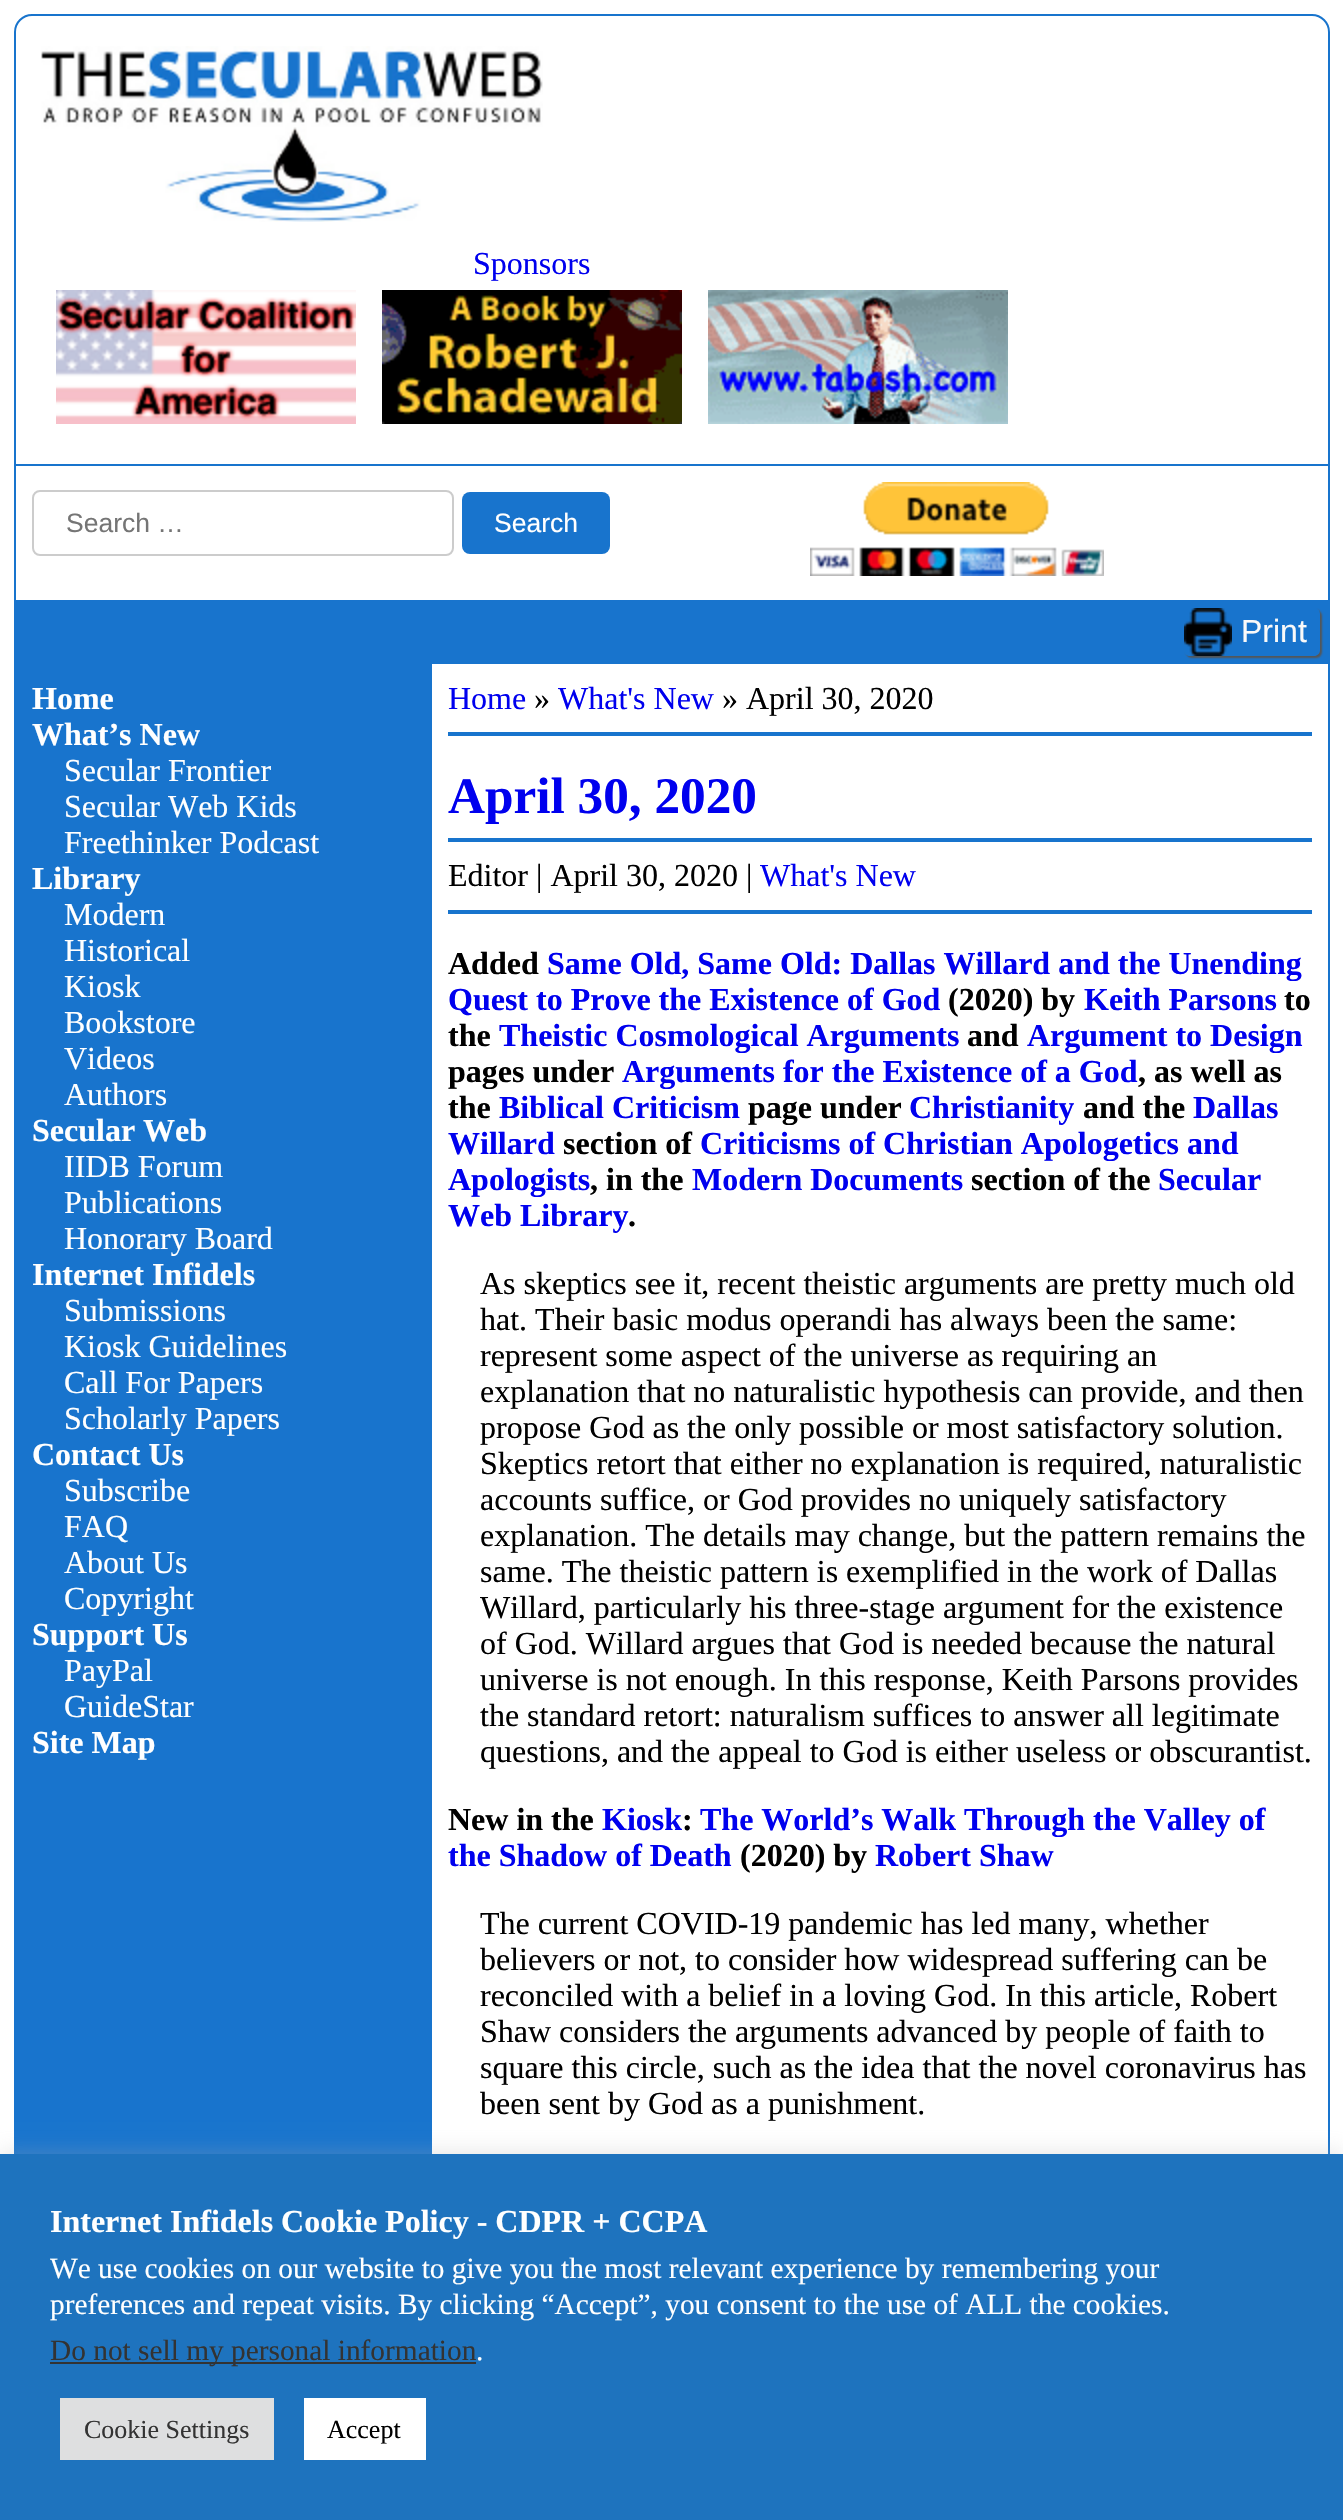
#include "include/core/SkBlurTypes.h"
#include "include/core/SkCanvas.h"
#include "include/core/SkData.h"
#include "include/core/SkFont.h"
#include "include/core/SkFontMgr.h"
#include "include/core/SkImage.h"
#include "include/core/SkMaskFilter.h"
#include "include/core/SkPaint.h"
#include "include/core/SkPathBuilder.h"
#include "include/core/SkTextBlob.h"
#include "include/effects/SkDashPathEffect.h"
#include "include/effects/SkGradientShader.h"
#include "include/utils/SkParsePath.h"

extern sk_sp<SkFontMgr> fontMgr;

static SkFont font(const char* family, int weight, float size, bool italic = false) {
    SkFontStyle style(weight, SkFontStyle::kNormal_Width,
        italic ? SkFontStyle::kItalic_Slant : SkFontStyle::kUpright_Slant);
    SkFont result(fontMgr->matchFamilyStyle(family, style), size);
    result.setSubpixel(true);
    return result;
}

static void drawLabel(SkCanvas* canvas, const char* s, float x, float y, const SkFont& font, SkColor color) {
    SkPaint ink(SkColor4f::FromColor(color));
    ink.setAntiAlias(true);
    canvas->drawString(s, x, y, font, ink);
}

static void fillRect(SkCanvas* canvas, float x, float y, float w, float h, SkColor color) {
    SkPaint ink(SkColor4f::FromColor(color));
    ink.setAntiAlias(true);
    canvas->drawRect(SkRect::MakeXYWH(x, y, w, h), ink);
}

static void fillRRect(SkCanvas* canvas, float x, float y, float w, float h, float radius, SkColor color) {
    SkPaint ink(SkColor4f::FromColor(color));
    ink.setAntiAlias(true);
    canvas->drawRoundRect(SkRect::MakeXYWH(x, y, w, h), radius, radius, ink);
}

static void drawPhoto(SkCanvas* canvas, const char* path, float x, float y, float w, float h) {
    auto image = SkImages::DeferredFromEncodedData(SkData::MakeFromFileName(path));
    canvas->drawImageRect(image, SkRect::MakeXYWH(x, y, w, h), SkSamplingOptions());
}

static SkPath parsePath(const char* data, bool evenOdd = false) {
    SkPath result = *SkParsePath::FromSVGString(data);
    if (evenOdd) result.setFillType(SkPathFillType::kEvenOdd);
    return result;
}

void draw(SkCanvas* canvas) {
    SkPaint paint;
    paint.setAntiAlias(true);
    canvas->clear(0xFFFFFFFF);
    fillRect(canvas, 16, 600, 1312, 1554, 0xFF1874CD);
    fillRect(canvas, 16, 464, 1312, 2, 0xFF1874CD);
    drawPhoto(canvas, "assets/img1.png", 41, 46, 502, 176);
    drawPhoto(canvas, "assets/img2.png", 56, 290, 300, 134);
    drawPhoto(canvas, "assets/img3.png", 382, 290, 300, 134);
    drawPhoto(canvas, "assets/img4.png", 708, 290, 300, 134);
    paint.setStroke(true);
    paint.setStrokeWidth(2);
    paint.setColor(0xFFCCCCCC);
    canvas->drawRoundRect(SkRect::MakeXYWH(33, 491, 420, 64), 7, 7, paint);
    drawPhoto(canvas, "assets/img5.png", 810, 482, 294, 94);
    canvas->save();
    canvas->clipPath(parsePath("M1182 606H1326V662H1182ZM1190 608H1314C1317.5 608 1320 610.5 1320 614V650C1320 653.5 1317.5 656 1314 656H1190C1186.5 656 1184 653.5 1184 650V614C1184 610.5 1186.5 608 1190 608Z", true), true);
    paint.setStroke(false);
    paint.setColor(0xFF555555);
    paint.setMaskFilter(SkMaskFilter::MakeBlur(kNormal_SkBlurStyle, 1));
    canvas->drawRoundRect(SkRect::MakeXYWH(1186, 610, 136, 48), 6, 6, paint);
    paint.setMaskFilter(nullptr);
    canvas->restore();
    drawPhoto(canvas, "assets/img6.png", 1184, 608, 48, 48);
    fillRect(canvas, 432, 664, 896, 1490, 0xFFFFFFFF);
    fillRect(canvas, 448, 838, 864, 4, 0xFF1874CD);
    paint.setStroke(true);
    paint.setColor(0xFF1874CD);
    canvas->drawRoundRect(SkRect::MakeXYWH(15, 15, 1314, 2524), 17, 17, paint);
    SkFont font1 = font("Liberation Serif", 400, 32);
    drawLabel(canvas, "Sponsors", 473, 274, font1, 0xFF0000EE);
    SkFont font2 = font("Liberation Sans", 400, 26.5f);
    drawLabel(canvas, "Search …", 66, 532, font2, 0xFF757575);
    fillRRect(canvas, 462, 492, 148, 62, 8, 0xFF1874CD);
    drawLabel(canvas, "Search", 494, 532, font2, 0xFFFFFFFF);
    SkFont font3 = font("Liberation Sans", 400, 32);
    drawLabel(canvas, "Print", 1241, 642, font3, 0xFFF9F9F9);
    SkFont font4 = font("Liberation Serif", 700, 32);
    drawLabel(canvas, "Home", 32, 709, font4, 0xFFFFFFFF);
    drawLabel(canvas, "What’s New", 32, 745, font4, 0xFFFFFFFF);
    drawLabel(canvas, "Secular Frontier", 64, 781, font1, 0xFFFFFFFF);
    drawLabel(canvas, "Secular Web Kids", 64, 817, font1, 0xFFFFFFFF);
    drawLabel(canvas, "Freethinker Podcast", 64, 853, font1, 0xFFFFFFFF);
    drawLabel(canvas, "Library", 32, 889, font4, 0xFFFFFFFF);
    drawLabel(canvas, "Modern", 64, 925, font1, 0xFFFFFFFF);
    drawLabel(canvas, "Historical", 64, 961, font1, 0xFFFFFFFF);
    drawLabel(canvas, "Kiosk", 64, 997, font1, 0xFFFFFFFF);
    drawLabel(canvas, "Bookstore", 64, 1033, font1, 0xFFFFFFFF);
    drawLabel(canvas, "Videos", 64, 1069, font1, 0xFFFFFFFF);
    drawLabel(canvas, "Authors", 64, 1105, font1, 0xFFFFFFFF);
    drawLabel(canvas, "Secular Web", 32, 1141, font4, 0xFFFFFFFF);
    drawLabel(canvas, "IIDB Forum", 64, 1177, font1, 0xFFFFFFFF);
    drawLabel(canvas, "Publications", 64, 1213, font1, 0xFFFFFFFF);
    drawLabel(canvas, "Honorary Board", 64, 1249, font1, 0xFFFFFFFF);
    drawLabel(canvas, "Internet Infidels", 32, 1285, font4, 0xFFFFFFFF);
    drawLabel(canvas, "Submissions", 64, 1321, font1, 0xFFFFFFFF);
    drawLabel(canvas, "Kiosk Guidelines", 64, 1357, font1, 0xFFFFFFFF);
    drawLabel(canvas, "Call For Papers", 64, 1393, font1, 0xFFFFFFFF);
    drawLabel(canvas, "Scholarly Papers", 64, 1429, font1, 0xFFFFFFFF);
    drawLabel(canvas, "Contact Us", 32, 1465, font4, 0xFFFFFFFF);
    drawLabel(canvas, "Subscribe", 64, 1501, font1, 0xFFFFFFFF);
    drawLabel(canvas, "FAQ", 64, 1537, font1, 0xFFFFFFFF);
    drawLabel(canvas, "About Us", 64, 1573, font1, 0xFFFFFFFF);
    drawLabel(canvas, "Copyright", 64, 1609, font1, 0xFFFFFFFF);
    drawLabel(canvas, "Support Us", 32, 1645, font4, 0xFFFFFFFF);
    drawLabel(canvas, "PayPal", 64, 1681, font1, 0xFFFFFFFF);
    drawLabel(canvas, "GuideStar", 64, 1717, font1, 0xFFFFFFFF);
    drawLabel(canvas, "Site Map", 32, 1753, font4, 0xFFFFFFFF);
    drawLabel(canvas, "Home", 448, 709, font1, 0xFF0000EE);
    drawLabel(canvas, "»", 534, 709, font1, 0xFF000000);
    drawLabel(canvas, "What's New", 558, 709, font1, 0xFF0000EE);
    drawLabel(canvas, "» April 30, 2020", 722, 709, font1, 0xFF000000);
    fillRect(canvas, 448, 732, 864, 4, 0xFF1874CD);
    SkFont font5 = font("Liberation Serif", 700, 51.25f);
    drawLabel(canvas, "April 30, 2020", 448, 813, font5, 0xFF0000EE);
    drawLabel(canvas, "Editor | April 30, 2020 |", 448, 886, font1, 0xFF000000);
    drawLabel(canvas, "What's New", 760, 886, font1, 0xFF0000EE);
    fillRect(canvas, 448, 910, 864, 4, 0xFF1874CD);
    drawLabel(canvas, "Added", 448, 974, font4, 0xFF000000);
    drawLabel(canvas, "Same Old, Same Old: Dallas Willard and the Unending", 547, 974, font4, 0xFF0000EE);
    drawLabel(canvas, "Quest to Prove the Existence of God", 448, 1010, font4, 0xFF0000EE);
    drawLabel(canvas, "(2020) by", 948, 1010, font4, 0xFF000000);
    drawLabel(canvas, "Keith Parsons", 1084, 1010, font4, 0xFF0000EE);
    drawLabel(canvas, "to", 1284, 1010, font4, 0xFF000000);
    drawLabel(canvas, "the", 448, 1046, font4, 0xFF000000);
    drawLabel(canvas, "Theistic Cosmological Arguments", 499, 1046, font4, 0xFF0000EE);
    drawLabel(canvas, "and", 967, 1046, font4, 0xFF000000);
    drawLabel(canvas, "Argument to Design", 1027, 1046, font4, 0xFF0000EE);
    drawLabel(canvas, "pages under", 448, 1082, font4, 0xFF000000);
    drawLabel(canvas, "Arguments for the Existence of a God", 622, 1082, font4, 0xFF0000EE);
    drawLabel(canvas, ", as well as", 1138, 1082, font4, 0xFF000000);
    drawLabel(canvas, "the", 448, 1118, font4, 0xFF000000);
    drawLabel(canvas, "Biblical Criticism", 499, 1118, font4, 0xFF0000EE);
    drawLabel(canvas, "page under", 748, 1118, font4, 0xFF000000);
    drawLabel(canvas, "Christianity", 909, 1118, font4, 0xFF0000EE);
    drawLabel(canvas, "and the", 1083, 1118, font4, 0xFF000000);
    drawLabel(canvas, "Dallas", 1193, 1118, font4, 0xFF0000EE);
    drawLabel(canvas, "Willard", 448, 1154, font4, 0xFF0000EE);
    drawLabel(canvas, "section of", 563, 1154, font4, 0xFF000000);
    drawLabel(canvas, "Criticisms of Christian Apologetics and", 700, 1154, font4, 0xFF0000EE);
    drawLabel(canvas, "Apologists", 448, 1190, font4, 0xFF0000EE);
    drawLabel(canvas, ", in the", 590, 1190, font4, 0xFF000000);
    drawLabel(canvas, "Modern Documents", 692, 1190, font4, 0xFF0000EE);
    drawLabel(canvas, "section of the", 971, 1190, font4, 0xFF000000);
    drawLabel(canvas, "Secular", 1158, 1190, font4, 0xFF0000EE);
    drawLabel(canvas, "Web Library", 448, 1226, font4, 0xFF0000EE);
    drawLabel(canvas, ".", 628, 1226, font4, 0xFF000000);
    drawLabel(canvas, "As skeptics see it, recent theistic arguments are pretty much old", 480, 1294, font1, 0xFF000000);
    drawLabel(canvas, "hat. Their basic modus operandi has always been the same:", 480, 1330, font1, 0xFF000000);
    drawLabel(canvas, "represent some aspect of the universe as requiring an", 480, 1366, font1, 0xFF000000);
    drawLabel(canvas, "explanation that no naturalistic hypothesis can provide, and then", 480, 1402, font1, 0xFF000000);
    drawLabel(canvas, "propose God as the only possible or most satisfactory solution.", 480, 1438, font1, 0xFF000000);
    drawLabel(canvas, "Skeptics retort that either no explanation is required, naturalistic", 480, 1474, font1, 0xFF000000);
    drawLabel(canvas, "accounts suffice, or God provides no uniquely satisfactory", 480, 1510, font1, 0xFF000000);
    drawLabel(canvas, "explanation. The details may change, but the pattern remains the", 480, 1546, font1, 0xFF000000);
    drawLabel(canvas, "same. The theistic pattern is exemplified in the work of Dallas", 480, 1582, font1, 0xFF000000);
    drawLabel(canvas, "Willard, particularly his three-stage argument for the existence", 480, 1618, font1, 0xFF000000);
    drawLabel(canvas, "of God. Willard argues that God is needed because the natural", 480, 1654, font1, 0xFF000000);
    drawLabel(canvas, "universe is not enough. In this response, Keith Parsons provides", 480, 1690, font1, 0xFF000000);
    drawLabel(canvas, "the standard retort: naturalism suffices to answer all legitimate", 480, 1726, font1, 0xFF000000);
    drawLabel(canvas, "questions, and the appeal to God is either useless or obscurantist.", 480, 1762, font1, 0xFF000000);
    drawLabel(canvas, "New in the", 448, 1830, font4, 0xFF000000);
    drawLabel(canvas, "Kiosk", 602, 1830, font4, 0xFF0000EE);
    drawLabel(canvas, ":", 682, 1830, font4, 0xFF000000);
    drawLabel(canvas, "The World’s Walk Through the Valley of", 700, 1830, font4, 0xFF0000EE);
    drawLabel(canvas, "the Shadow of Death", 448, 1866, font4, 0xFF0000EE);
    drawLabel(canvas, "(2020) by", 740, 1866, font4, 0xFF000000);
    drawLabel(canvas, "Robert Shaw", 875, 1866, font4, 0xFF0000EE);
    drawLabel(canvas, "The current COVID-19 pandemic has led many, whether", 480, 1934, font1, 0xFF000000);
    drawLabel(canvas, "believers or not, to consider how widespread suffering can be", 480, 1970, font1, 0xFF000000);
    drawLabel(canvas, "reconciled with a belief in a loving God. In this article, Robert", 480, 2006, font1, 0xFF000000);
    drawLabel(canvas, "Shaw considers the arguments advanced by people of faith to", 480, 2042, font1, 0xFF000000);
    drawLabel(canvas, "square this circle, such as the idea that the novel coronavirus has", 480, 2078, font1, 0xFF000000);
    drawLabel(canvas, "been sent by God as a punishment.", 480, 2114, font1, 0xFF000000);
    paint.setStroke(false);
    paint.setColor(0x4DACABAB);
    paint.setMaskFilter(SkMaskFilter::MakeBlur(kNormal_SkBlurStyle, 10));
    canvas->drawRect(SkRect::MakeXYWH(0, 2152, 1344, 366), paint);
    paint.setMaskFilter(nullptr);
    fillRect(canvas, 0, 2154, 1343, 366, 0xFF1E73BE);
    drawLabel(canvas, "Internet Infidels Cookie Policy - CDPR + CCPA", 50, 2232, font4, 0xFFFFFFFF);
    SkFont font6 = font("Liberation Serif", 400, 29.35f);
    drawLabel(canvas, "We use cookies on our website to give you the most relevant experience by remembering your", 50, 2278, font6, 0xFFFFFFFF);
    drawLabel(canvas, "preferences and repeat visits. By clicking “Accept”, you consent to the use of ALL the cookies.", 50, 2314, font6, 0xFFFFFFFF);
    fillRect(canvas, 50, 2362, 426, 2, 0xFF333333);
    drawLabel(canvas, "Do not sell my personal information", 50, 2360, font6, 0xFF333333);
    drawLabel(canvas, ".", 476, 2360, font6, 0xFFFFFFFF);
    fillRect(canvas, 60, 2398, 214, 62, 0xFFDEDFE0);
    SkFont font7 = font("Liberation Serif", 400, 26);
    drawLabel(canvas, "Cookie Settings", 84, 2438, font7, 0xFF333333);
    fillRect(canvas, 304, 2398, 122, 62, 0xFFFFFFFF);
    drawLabel(canvas, "Accept", 327, 2438, font7, 0xFF000000);
}
